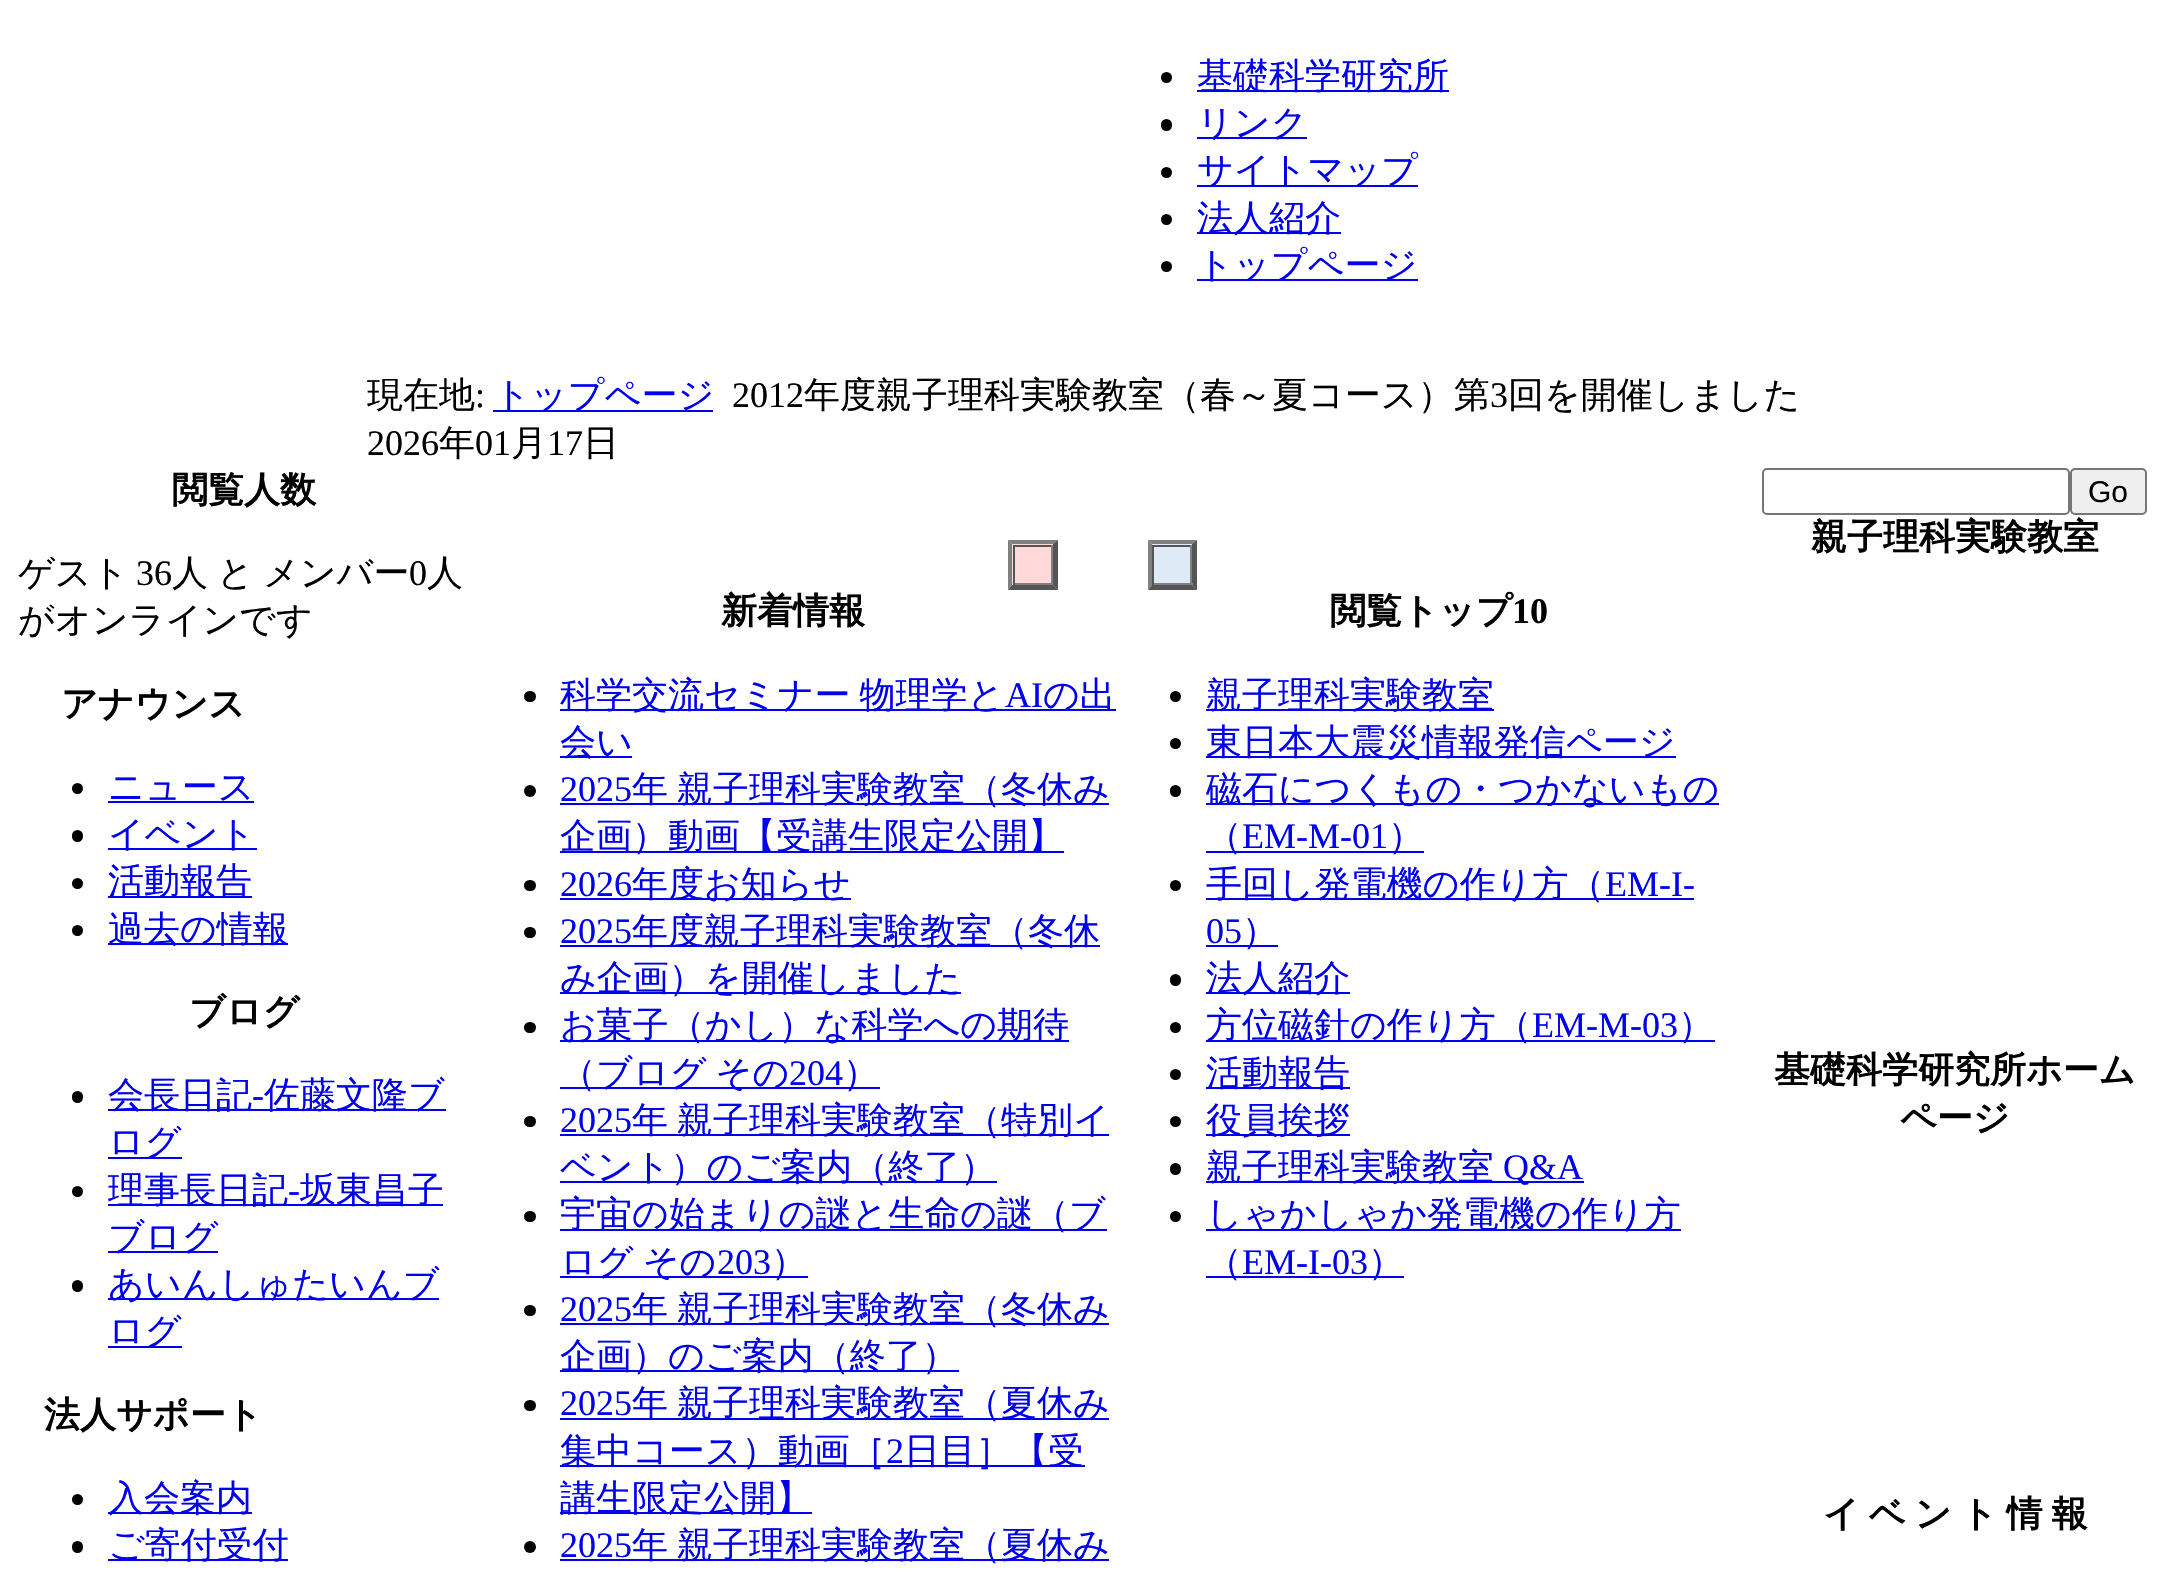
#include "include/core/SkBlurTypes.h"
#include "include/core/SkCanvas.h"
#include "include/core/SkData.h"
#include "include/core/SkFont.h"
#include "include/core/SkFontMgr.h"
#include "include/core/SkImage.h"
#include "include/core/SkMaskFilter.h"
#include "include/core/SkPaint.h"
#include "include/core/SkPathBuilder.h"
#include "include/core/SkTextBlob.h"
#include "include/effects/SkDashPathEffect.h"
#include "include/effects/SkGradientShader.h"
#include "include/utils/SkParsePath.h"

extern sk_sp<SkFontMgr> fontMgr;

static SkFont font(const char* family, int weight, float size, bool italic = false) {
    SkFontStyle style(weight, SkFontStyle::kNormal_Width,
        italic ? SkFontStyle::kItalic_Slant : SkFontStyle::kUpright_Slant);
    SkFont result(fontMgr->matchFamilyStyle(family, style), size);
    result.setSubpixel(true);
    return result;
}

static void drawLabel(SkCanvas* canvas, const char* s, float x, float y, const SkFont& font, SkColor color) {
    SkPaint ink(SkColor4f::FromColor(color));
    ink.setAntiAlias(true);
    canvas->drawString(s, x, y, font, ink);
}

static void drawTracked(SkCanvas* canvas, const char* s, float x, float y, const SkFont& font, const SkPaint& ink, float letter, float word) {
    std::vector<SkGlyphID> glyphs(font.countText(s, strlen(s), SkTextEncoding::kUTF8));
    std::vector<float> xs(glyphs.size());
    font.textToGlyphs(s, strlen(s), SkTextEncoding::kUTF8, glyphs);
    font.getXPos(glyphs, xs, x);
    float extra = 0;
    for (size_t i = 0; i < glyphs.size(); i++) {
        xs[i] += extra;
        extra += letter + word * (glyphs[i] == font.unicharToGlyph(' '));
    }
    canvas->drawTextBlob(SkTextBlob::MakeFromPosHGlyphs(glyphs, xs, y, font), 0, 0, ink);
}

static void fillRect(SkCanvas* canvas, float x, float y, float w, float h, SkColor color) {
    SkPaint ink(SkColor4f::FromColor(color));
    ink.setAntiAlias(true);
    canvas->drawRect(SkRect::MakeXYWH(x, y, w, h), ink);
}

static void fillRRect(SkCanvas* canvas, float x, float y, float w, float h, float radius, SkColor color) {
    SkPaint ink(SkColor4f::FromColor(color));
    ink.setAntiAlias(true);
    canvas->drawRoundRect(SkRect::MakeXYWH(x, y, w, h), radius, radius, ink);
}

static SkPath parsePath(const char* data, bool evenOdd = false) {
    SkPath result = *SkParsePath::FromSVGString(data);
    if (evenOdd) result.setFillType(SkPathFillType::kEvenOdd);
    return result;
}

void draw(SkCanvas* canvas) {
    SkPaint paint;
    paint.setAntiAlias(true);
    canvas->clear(0xFFFFFFFF);
    paint.setColor(0xFF000000);
    canvas->drawCircle(1166.5f, 77.5f, 5.5f, paint);
    fillRect(canvas, 1197, 90, 252, 2, 0xFF0000EE);
    SkFont font1 = font("WenQuanYi Zen Hei", 500, 36);
    drawLabel(canvas, "基礎科学研究所", 1197, 88, font1, 0xFF0000EE);
    fillRRect(canvas, 1161, 119, 11, 12, 5.5f, 0xFF000000);
    fillRect(canvas, 1197, 137, 110, 2, 0xFF0000EE);
    drawLabel(canvas, "リンク", 1197, 135, font1, 0xFF0000EE);
    canvas->drawCircle(1166.5f, 172.5f, 5.5f, paint);
    fillRect(canvas, 1197, 185, 221, 2, 0xFF0000EE);
    drawLabel(canvas, "サイトマップ", 1197, 182, font1, 0xFF0000EE);
    canvas->drawCircle(1166.5f, 219.5f, 5.5f, paint);
    fillRect(canvas, 1197, 232, 144, 2, 0xFF0000EE);
    drawLabel(canvas, "法人紹介", 1197, 230, font1, 0xFF0000EE);
    canvas->drawCircle(1166.5f, 266.5f, 5.5f, paint);
    fillRect(canvas, 1197, 279, 221, 2, 0xFF0000EE);
    drawLabel(canvas, "トップページ", 1197, 277, font1, 0xFF0000EE);
    drawLabel(canvas, "現在地", 367, 407, font1, 0xFF000000);
    SkFont font2 = font("Liberation Serif", 400, 36);
    drawLabel(canvas, ":", 475, 407, font2, 0xFF000000);
    fillRect(canvas, 493, 410, 220, 2, 0xFF0000EE);
    drawLabel(canvas, "トップページ", 494, 407, font1, 0xFF0000EE);
    drawLabel(canvas, "2012", 732, 407, font2, 0xFF000000);
    drawLabel(canvas, "年度親子理科実験教室（春～夏コース）第", 804, 407, font1, 0xFF000000);
    drawLabel(canvas, "3", 1490, 407, font2, 0xFF000000);
    drawLabel(canvas, "回を開催しました", 1508, 407, font1, 0xFF000000);
    drawLabel(canvas, "2026", 367, 455, font2, 0xFF000000);
    drawLabel(canvas, "年", 439, 455, font1, 0xFF000000);
    drawLabel(canvas, "01", 475, 455, font2, 0xFF000000);
    drawLabel(canvas, "月", 511, 455, font1, 0xFF000000);
    drawLabel(canvas, "17", 547, 455, font2, 0xFF000000);
    drawLabel(canvas, "日", 583, 455, font1, 0xFF000000);
    SkFont font3 = font("WenQuanYi Zen Hei", 700, 36);
    drawLabel(canvas, "閲覧人数", 172, 502, font3, 0xFF000000);
    drawLabel(canvas, "ゲスト", 18, 585, font1, 0xFF000000);
    drawLabel(canvas, "36", 136, 585, font2, 0xFF000000);
    drawTracked(canvas, "人 と メンバー", 172, 585, font1, paint, 0, -1.75f);
    drawLabel(canvas, "0", 409, 585, font2, 0xFF000000);
    drawLabel(canvas, "人", 427, 585, font1, 0xFF000000);
    drawLabel(canvas, "がオンラインです", 18, 632, font1, 0xFF000000);
    drawLabel(canvas, "アナウンス", 61, 716, font3, 0xFF000000);
    canvas->drawCircle(77.5f, 788.5f, 5.5f, paint);
    drawLabel(canvas, "ニュース", 108, 799, font1, 0xFF0000EE);
    fillRect(canvas, 108, 801, 146, 2, 0xFF0000EE);
    fillRRect(canvas, 72, 830, 11, 12, 5.5f, 0xFF000000);
    fillRect(canvas, 108, 848, 149, 2, 0xFF0000EE);
    drawLabel(canvas, "イベント", 108, 846, font1, 0xFF0000EE);
    canvas->drawCircle(77.5f, 883.5f, 5.5f, paint);
    fillRect(canvas, 108, 896, 144, 2, 0xFF0000EE);
    drawLabel(canvas, "活動報告", 108, 893, font1, 0xFF0000EE);
    canvas->drawCircle(77.5f, 930.5f, 5.5f, paint);
    fillRect(canvas, 108, 943, 180, 2, 0xFF0000EE);
    drawLabel(canvas, "過去の情報", 108, 941, font1, 0xFF0000EE);
    drawLabel(canvas, "ブログ", 189, 1024, font3, 0xFF000000);
    fillRRect(canvas, 72, 1091, 11, 12, 5.5f, 0xFF000000);
    fillRect(canvas, 108, 1109, 338, 2, 0xFF0000EE);
    drawLabel(canvas, "会長日記", 108, 1107, font1, 0xFF0000EE);
    drawLabel(canvas, "-", 252, 1107, font2, 0xFF0000EE);
    drawLabel(canvas, "佐藤文隆ブ", 264, 1107, font1, 0xFF0000EE);
    fillRect(canvas, 108, 1157, 74, 2, 0xFF0000EE);
    drawLabel(canvas, "ログ", 108, 1154, font1, 0xFF0000EE);
    canvas->drawCircle(77.5f, 1191.5f, 5.5f, paint);
    fillRect(canvas, 108, 1204, 335, 2, 0xFF0000EE);
    drawLabel(canvas, "理事長日記", 108, 1202, font1, 0xFF0000EE);
    drawLabel(canvas, "-", 288, 1202, font2, 0xFF0000EE);
    drawLabel(canvas, "坂東昌子", 300, 1202, font1, 0xFF0000EE);
    fillRect(canvas, 108, 1251, 110, 2, 0xFF0000EE);
    drawLabel(canvas, "ブログ", 108, 1249, font1, 0xFF0000EE);
    fillRRect(canvas, 72, 1280, 11, 12, 5.5f, 0xFF000000);
    fillRect(canvas, 108, 1298, 331, 2, 0xFF0000EE);
    drawLabel(canvas, "あいんしゅたいんブ", 108, 1296, font1, 0xFF0000EE);
    fillRect(canvas, 108, 1346, 74, 2, 0xFF0000EE);
    drawLabel(canvas, "ログ", 108, 1343, font1, 0xFF0000EE);
    drawLabel(canvas, "法人サポート", 44, 1427, font3, 0xFF000000);
    canvas->drawCircle(77.5f, 1499.5f, 5.5f, paint);
    fillRect(canvas, 108, 1512, 144, 2, 0xFF0000EE);
    drawLabel(canvas, "入会案内", 108, 1510, font1, 0xFF0000EE);
    fillRRect(canvas, 72, 1541, 11, 12, 5.5f, 0xFF000000);
    fillRect(canvas, 108, 1559, 180, 2, 0xFF0000EE);
    drawLabel(canvas, "ご寄付受付", 108, 1557, font1, 0xFF0000EE);
    fillRect(canvas, 1008, 540, 50, 50, 0xFFFFD9D9);
    paint.setColor(0xFF808080);
    canvas->drawPath(parsePath("M1008 540H1058L1053 544H1012Z"), paint);
    paint.setColor(0xFF555555);
    canvas->drawPath(parsePath("M1058 540V590L1053 585V544Z"), paint);
    canvas->drawPath(parsePath("M1058 590H1008L1012 585H1053Z"), paint);
    paint.setColor(0xFF808080);
    canvas->drawPath(parsePath("M1008 590V540L1012 544V585Z"), paint);
    fillRect(canvas, 1013, 545, 40, 2, 0xFF555555);
    fillRect(canvas, 1051, 545, 2, 40, 0xFF808080);
    fillRect(canvas, 1013, 583, 40, 2, 0xFF808080);
    fillRect(canvas, 1013, 545, 2, 40, 0xFF555555);
    fillRect(canvas, 1148, 540, 49, 50, 0xFFDEEBF7);
    canvas->drawPath(parsePath("M1148 540H1197L1192 544H1152Z"), paint);
    paint.setColor(0xFF555555);
    canvas->drawPath(parsePath("M1197 540V590L1192 585V544Z"), paint);
    canvas->drawPath(parsePath("M1197 590H1148L1152 585H1192Z"), paint);
    paint.setColor(0xFF808080);
    canvas->drawPath(parsePath("M1148 590V540L1152 544V585Z"), paint);
    fillRect(canvas, 1152, 545, 41, 2, 0xFF555555);
    fillRect(canvas, 1190, 545, 2, 40, 0xFF808080);
    fillRect(canvas, 1152, 583, 41, 2, 0xFF808080);
    fillRect(canvas, 1152, 545, 2, 40, 0xFF555555);
    drawLabel(canvas, "新着情報", 721, 623, font3, 0xFF000000);
    fillRRect(canvas, 524, 691, 12, 11, 5.5f, 0xFF000000);
    fillRect(canvas, 560, 709, 556, 2, 0xFF0000EE);
    paint.setColor(0xFF0000EE);
    drawTracked(canvas, "科学交流セミナー 物理学と", 560, 707, font1, paint, 0, -1.75f);
    drawLabel(canvas, "AI", 1005, 707, font2, 0xFF0000EE);
    drawLabel(canvas, "の出", 1043, 707, font1, 0xFF0000EE);
    fillRect(canvas, 560, 756, 72, 2, 0xFF0000EE);
    drawLabel(canvas, "会い", 560, 754, font1, 0xFF0000EE);
    paint.setColor(0xFF000000);
    canvas->drawCircle(530, 791, 6, paint);
    drawLabel(canvas, "2025", 560, 801, font2, 0xFF0000EE);
    fillRect(canvas, 560, 803, 549, 2, 0xFF0000EE);
    paint.setColor(0xFF0000EE);
    drawTracked(canvas, "年 親子理科実験教室（冬休み", 632, 801, font1, paint, 0, -1.75f);
    fillRect(canvas, 560, 851, 504, 2, 0xFF0000EE);
    drawLabel(canvas, "企画）動画【受講生限定公開】", 560, 848, font1, 0xFF0000EE);
    fillRRect(canvas, 524, 880, 12, 11, 5.5f, 0xFF000000);
    drawLabel(canvas, "2026", 560, 896, font2, 0xFF0000EE);
    fillRect(canvas, 560, 898, 291, 2, 0xFF0000EE);
    drawLabel(canvas, "年度お知らせ", 632, 896, font1, 0xFF0000EE);
    fillRRect(canvas, 524, 927, 12, 11, 5.5f, 0xFF000000);
    drawLabel(canvas, "2025", 560, 943, font2, 0xFF0000EE);
    fillRect(canvas, 560, 945, 540, 2, 0xFF0000EE);
    drawLabel(canvas, "年度親子理科実験教室（冬休", 632, 943, font1, 0xFF0000EE);
    fillRect(canvas, 560, 992, 401, 2, 0xFF0000EE);
    drawLabel(canvas, "み企画）を開催しました", 560, 990, font1, 0xFF0000EE);
    fillRRect(canvas, 524, 1022, 12, 11, 5.5f, 0xFF000000);
    fillRect(canvas, 560, 1040, 509, 2, 0xFF0000EE);
    drawLabel(canvas, "お菓子（かし）な科学への期待", 560, 1037, font1, 0xFF0000EE);
    fillRect(canvas, 560, 1087, 320, 2, 0xFF0000EE);
    drawTracked(canvas, "（ブログ その", 560, 1085, font1, paint, 0, -1.75f);
    drawLabel(canvas, "204", 789, 1085, font2, 0xFF0000EE);
    drawLabel(canvas, "）", 843, 1085, font1, 0xFF0000EE);
    fillRRect(canvas, 524, 1116, 12, 11, 5.5f, 0xFF000000);
    drawLabel(canvas, "2025", 560, 1132, font2, 0xFF0000EE);
    fillRect(canvas, 560, 1134, 549, 2, 0xFF0000EE);
    drawTracked(canvas, "年 親子理科実験教室（特別イ", 632, 1132, font1, paint, 0, -1.75f);
    fillRect(canvas, 560, 1181, 437, 2, 0xFF0000EE);
    drawLabel(canvas, "ベント）のご案内（終了）", 560, 1179, font1, 0xFF0000EE);
    fillRRect(canvas, 524, 1211, 12, 11, 5.5f, 0xFF000000);
    fillRect(canvas, 560, 1229, 547, 2, 0xFF0000EE);
    drawLabel(canvas, "宇宙の始まりの謎と生命の謎（ブ", 560, 1226, font1, 0xFF0000EE);
    fillRect(canvas, 560, 1276, 248, 2, 0xFF0000EE);
    drawTracked(canvas, "ログ その", 560, 1274, font1, paint, 0, -1.75f);
    drawLabel(canvas, "203", 717, 1274, font2, 0xFF0000EE);
    drawLabel(canvas, "）", 771, 1274, font1, 0xFF0000EE);
    fillRRect(canvas, 524, 1305, 12, 11, 5.5f, 0xFF000000);
    drawLabel(canvas, "2025", 560, 1321, font2, 0xFF0000EE);
    fillRect(canvas, 560, 1323, 549, 2, 0xFF0000EE);
    drawTracked(canvas, "年 親子理科実験教室（冬休み", 632, 1321, font1, paint, 0, -1.75f);
    fillRect(canvas, 560, 1370, 399, 2, 0xFF0000EE);
    drawLabel(canvas, "企画）のご案内（終了）", 560, 1368, font1, 0xFF0000EE);
    fillRRect(canvas, 524, 1400, 12, 11, 5.5f, 0xFF000000);
    drawLabel(canvas, "2025", 560, 1415, font2, 0xFF0000EE);
    fillRect(canvas, 560, 1418, 549, 2, 0xFF0000EE);
    drawTracked(canvas, "年 親子理科実験教室（夏休み", 632, 1415, font1, paint, 0, -1.75f);
    fillRect(canvas, 560, 1465, 525, 2, 0xFF0000EE);
    drawLabel(canvas, "集中コース）動画［", 560, 1463, font1, 0xFF0000EE);
    drawLabel(canvas, "2", 886, 1463, font2, 0xFF0000EE);
    drawLabel(canvas, "日目］【受", 904, 1463, font1, 0xFF0000EE);
    fillRect(canvas, 560, 1512, 252, 2, 0xFF0000EE);
    drawLabel(canvas, "講生限定公開】", 560, 1510, font1, 0xFF0000EE);
    paint.setColor(0xFF000000);
    canvas->drawCircle(530, 1547, 6, paint);
    drawLabel(canvas, "2025", 560, 1557, font2, 0xFF0000EE);
    fillRect(canvas, 560, 1559, 549, 2, 0xFF0000EE);
    paint.setColor(0xFF0000EE);
    drawTracked(canvas, "年 親子理科実験教室（夏休み", 632, 1557, font1, paint, 0, -1.75f);
    drawLabel(canvas, "閲覧トップ", 1330, 623, font3, 0xFF000000);
    SkFont font4 = font("Liberation Serif", 700, 36);
    drawLabel(canvas, "10", 1512, 623, font4, 0xFF000000);
    paint.setColor(0xFF000000);
    canvas->drawCircle(1175.5f, 696.5f, 5.5f, paint);
    fillRect(canvas, 1206, 709, 288, 2, 0xFF0000EE);
    drawLabel(canvas, "親子理科実験教室", 1206, 707, font1, 0xFF0000EE);
    canvas->drawCircle(1175.5f, 743.5f, 5.5f, paint);
    fillRect(canvas, 1206, 756, 470, 2, 0xFF0000EE);
    drawLabel(canvas, "東日本大震災情報発信ページ", 1206, 754, font1, 0xFF0000EE);
    fillRRect(canvas, 1170, 785, 11, 12, 5.5f, 0xFF000000);
    fillRect(canvas, 1206, 803, 513, 2, 0xFF0000EE);
    drawLabel(canvas, "磁石につくもの・つかないもの", 1206, 801, font1, 0xFF0000EE);
    fillRect(canvas, 1206, 851, 218, 2, 0xFF0000EE);
    drawLabel(canvas, "（", 1206, 848, font1, 0xFF0000EE);
    drawLabel(canvas, "EM-M-01", 1242, 848, font2, 0xFF0000EE);
    drawLabel(canvas, "）", 1388, 848, font1, 0xFF0000EE);
    canvas->drawCircle(1175.5f, 885.5f, 5.5f, paint);
    fillRect(canvas, 1206, 898, 488, 2, 0xFF0000EE);
    drawLabel(canvas, "手回し発電機の作り方（", 1206, 896, font1, 0xFF0000EE);
    drawLabel(canvas, "EM-I-", 1605, 896, font2, 0xFF0000EE);
    drawLabel(canvas, "05", 1206, 943, font2, 0xFF0000EE);
    fillRect(canvas, 1206, 945, 72, 2, 0xFF0000EE);
    drawLabel(canvas, "）", 1242, 943, font1, 0xFF0000EE);
    fillRRect(canvas, 1170, 974, 11, 12, 5.5f, 0xFF000000);
    fillRect(canvas, 1206, 992, 144, 2, 0xFF0000EE);
    drawLabel(canvas, "法人紹介", 1206, 990, font1, 0xFF0000EE);
    canvas->drawCircle(1175.5f, 1027.5f, 5.5f, paint);
    fillRect(canvas, 1206, 1040, 509, 2, 0xFF0000EE);
    drawLabel(canvas, "方位磁針の作り方（", 1206, 1037, font1, 0xFF0000EE);
    drawLabel(canvas, "EM-M-03", 1532, 1037, font2, 0xFF0000EE);
    drawLabel(canvas, "）", 1678, 1037, font1, 0xFF0000EE);
    canvas->drawCircle(1175.5f, 1074.5f, 5.5f, paint);
    fillRect(canvas, 1206, 1087, 144, 2, 0xFF0000EE);
    drawLabel(canvas, "活動報告", 1206, 1085, font1, 0xFF0000EE);
    canvas->drawCircle(1175.5f, 1121.5f, 5.5f, paint);
    fillRect(canvas, 1206, 1134, 144, 2, 0xFF0000EE);
    drawLabel(canvas, "役員挨拶", 1206, 1132, font1, 0xFF0000EE);
    fillRRect(canvas, 1170, 1163, 11, 12, 5.5f, 0xFF000000);
    fillRect(canvas, 1206, 1181, 378, 2, 0xFF0000EE);
    drawLabel(canvas, "親子理科実験教室", 1206, 1179, font1, 0xFF0000EE);
    drawLabel(canvas, "Q&A", 1503, 1179, font2, 0xFF0000EE);
    canvas->drawCircle(1175.5f, 1216.5f, 5.5f, paint);
    fillRect(canvas, 1206, 1229, 475, 2, 0xFF0000EE);
    drawLabel(canvas, "しゃかしゃか発電機の作り方", 1206, 1226, font1, 0xFF0000EE);
    fillRect(canvas, 1206, 1276, 198, 2, 0xFF0000EE);
    drawLabel(canvas, "（", 1206, 1274, font1, 0xFF0000EE);
    drawLabel(canvas, "EM-I-03", 1242, 1274, font2, 0xFF0000EE);
    drawLabel(canvas, "）", 1368, 1274, font1, 0xFF0000EE);
    paint.setStroke(true);
    paint.setStrokeWidth(2);
    paint.setColor(0xFF767676);
    canvas->drawRoundRect(SkRect::MakeXYWH(1763, 469, 306, 45), 4, 4, paint);
    paint.setStroke(false);
    paint.setColor(0xFFEFEFEF);
    canvas->drawRoundRect(SkRect::MakeXYWH(2071, 469, 75, 45), 4, 4, paint);
    paint.setStroke(true);
    paint.setColor(0xFF767676);
    canvas->drawRoundRect(SkRect::MakeXYWH(2071, 469, 75, 45), 4, 4, paint);
    SkFont font5 = font("Liberation Sans", 400, 30);
    drawLabel(canvas, "Go", 2088, 502, font5, 0xFF000000);
    drawLabel(canvas, "親子理科実験教室", 1811, 549, font3, 0xFF000000);
    drawLabel(canvas, "基礎科学研究所ホーム", 1774, 1082, font3, 0xFF000000);
    drawLabel(canvas, "ページ", 1900, 1130, font3, 0xFF000000);
    paint.setStroke(false);
    paint.setColor(0xFF000000);
    drawTracked(canvas, "イ ベ ン ト 情 報", 1823, 1526, font3, paint, 0, -1.75f);
}
